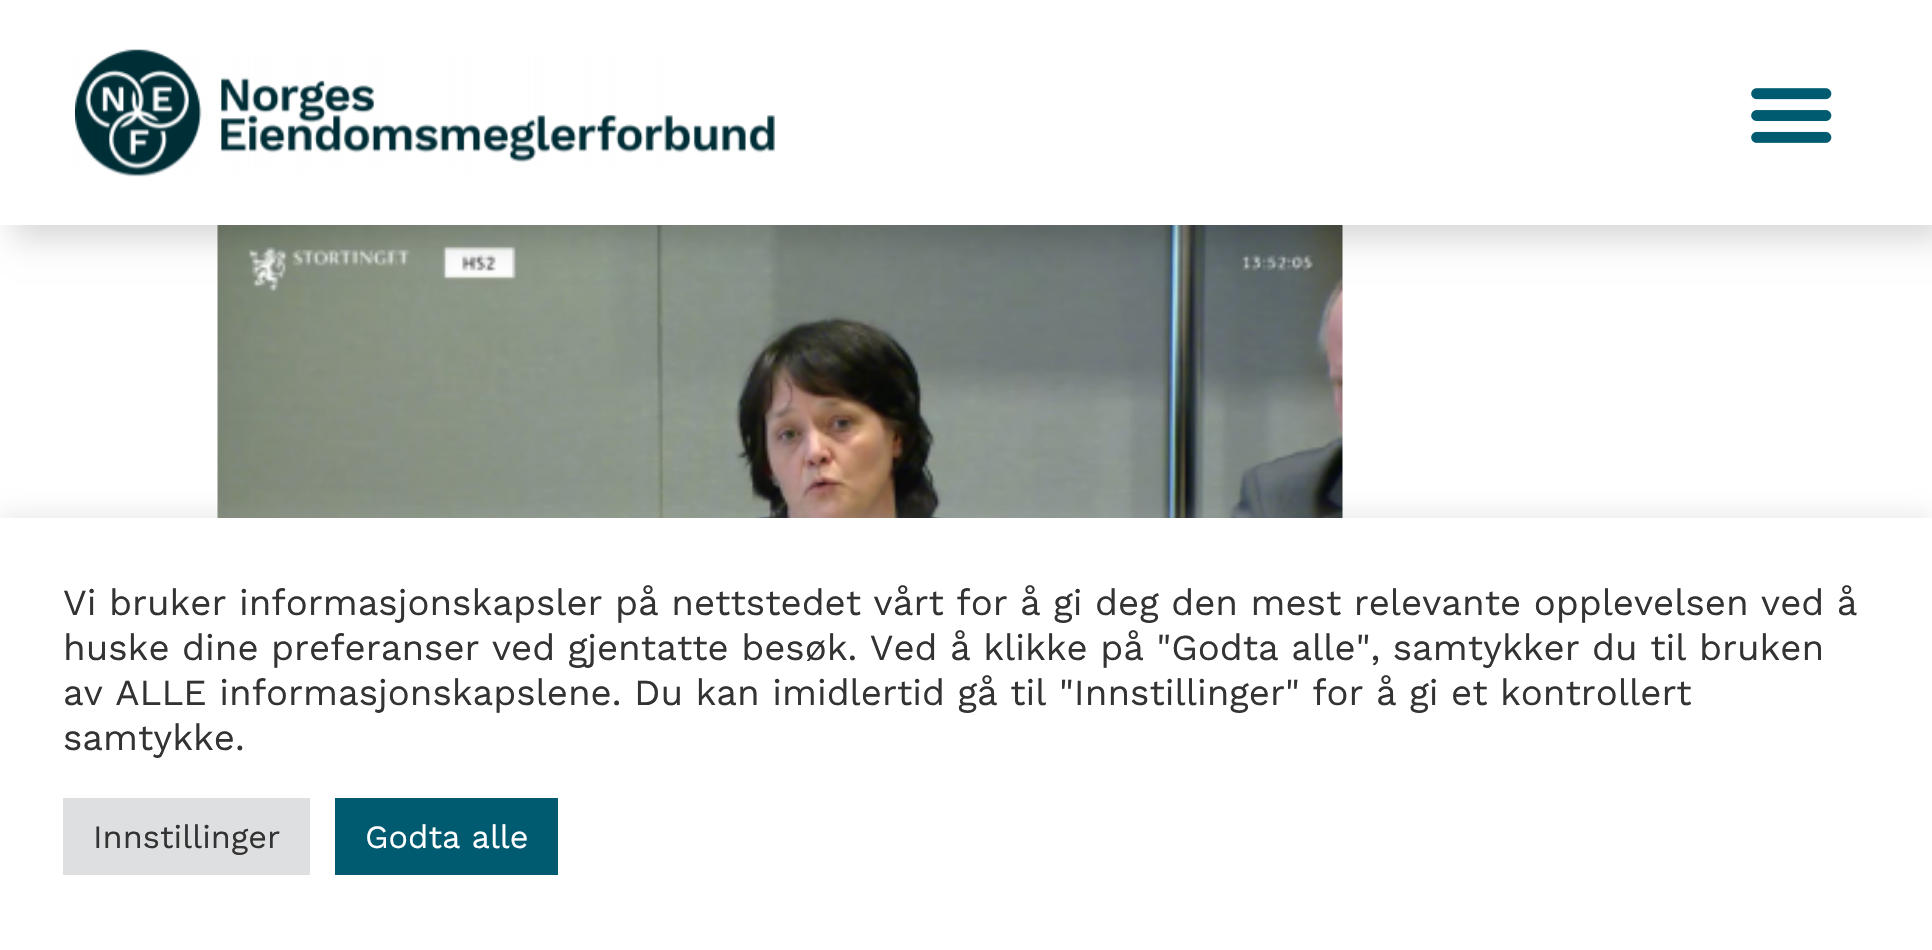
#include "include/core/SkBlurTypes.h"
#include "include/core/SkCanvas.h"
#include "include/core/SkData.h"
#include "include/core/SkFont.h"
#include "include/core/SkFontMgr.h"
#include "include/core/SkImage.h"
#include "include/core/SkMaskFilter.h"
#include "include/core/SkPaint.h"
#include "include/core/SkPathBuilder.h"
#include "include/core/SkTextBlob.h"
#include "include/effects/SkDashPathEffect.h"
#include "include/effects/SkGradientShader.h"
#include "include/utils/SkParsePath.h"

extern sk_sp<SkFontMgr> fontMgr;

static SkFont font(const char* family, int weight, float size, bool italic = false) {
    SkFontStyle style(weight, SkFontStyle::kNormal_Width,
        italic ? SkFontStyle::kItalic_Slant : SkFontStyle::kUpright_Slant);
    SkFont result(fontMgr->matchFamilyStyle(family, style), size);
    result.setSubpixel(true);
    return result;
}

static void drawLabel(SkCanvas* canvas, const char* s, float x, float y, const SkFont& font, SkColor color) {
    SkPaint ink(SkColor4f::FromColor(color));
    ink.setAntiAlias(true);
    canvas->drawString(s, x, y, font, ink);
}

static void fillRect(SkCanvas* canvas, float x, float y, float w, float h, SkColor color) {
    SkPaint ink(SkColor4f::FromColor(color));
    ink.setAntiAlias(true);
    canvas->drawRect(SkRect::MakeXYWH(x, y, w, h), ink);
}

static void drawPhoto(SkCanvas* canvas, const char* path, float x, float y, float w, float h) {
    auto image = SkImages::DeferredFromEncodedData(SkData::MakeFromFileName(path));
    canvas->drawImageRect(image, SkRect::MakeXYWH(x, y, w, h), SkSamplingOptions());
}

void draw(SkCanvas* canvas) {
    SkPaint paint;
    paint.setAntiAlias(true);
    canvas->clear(0xFFFFFFFF);
    drawPhoto(canvas, "assets/img3.png", 217, 225, 1126, 293);
    paint.setColor(0x26000000);
    paint.setMaskFilter(SkMaskFilter::MakeBlur(kNormal_SkBlurStyle, 15));
    canvas->drawRect(SkRect::MakeXYWH(13, 15, 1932, 225), paint);
    paint.setMaskFilter(nullptr);
    fillRect(canvas, 0, 0, 1932, 225, 0xFFFFFFFF);
    drawPhoto(canvas, "assets/img1.png", 75, 49, 700, 128);
    drawPhoto(canvas, "assets/img2.png", 1751, 88, 81, 55);
    paint.setColor(0x4DACABAB);
    paint.setMaskFilter(SkMaskFilter::MakeBlur(kNormal_SkBlurStyle, 12.5f));
    canvas->drawRect(SkRect::MakeXYWH(0, 515, 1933, 433), paint);
    paint.setMaskFilter(nullptr);
    fillRect(canvas, 0, 518, 1932, 432, 0xFFFFFFFF);
    SkFont font1 = font("Work Sans", 400, 36.65f);
    drawLabel(canvas, "Vi bruker informasjonskapsler på nettstedet vårt for å gi deg den mest relevante opplevelsen ved å", 63, 615, font1, 0xFF333333);
    drawLabel(canvas, "huske dine preferanser ved gjentatte besøk. Ved å klikke på \"Godta alle\", samtykker du til bruken", 63, 660, font1, 0xFF333333);
    drawLabel(canvas, "av ALLE informasjonskapslene. Du kan imidlertid gå til \"Innstillinger\" for å gi et kontrollert", 63, 705, font1, 0xFF333333);
    drawLabel(canvas, "samtykke.", 63, 750, font1, 0xFF333333);
    fillRect(canvas, 63, 798, 247, 77, 0xFFDEDFE0);
    SkFont font2 = font("Work Sans", 400, 32.5f);
    drawLabel(canvas, "Innstillinger", 93, 848, font2, 0xFF333333);
    fillRect(canvas, 335, 798, 223, 77, 0xFF005B71);
    drawLabel(canvas, "Godta alle", 365, 848, font2, 0xFFFFFFFF);
}
